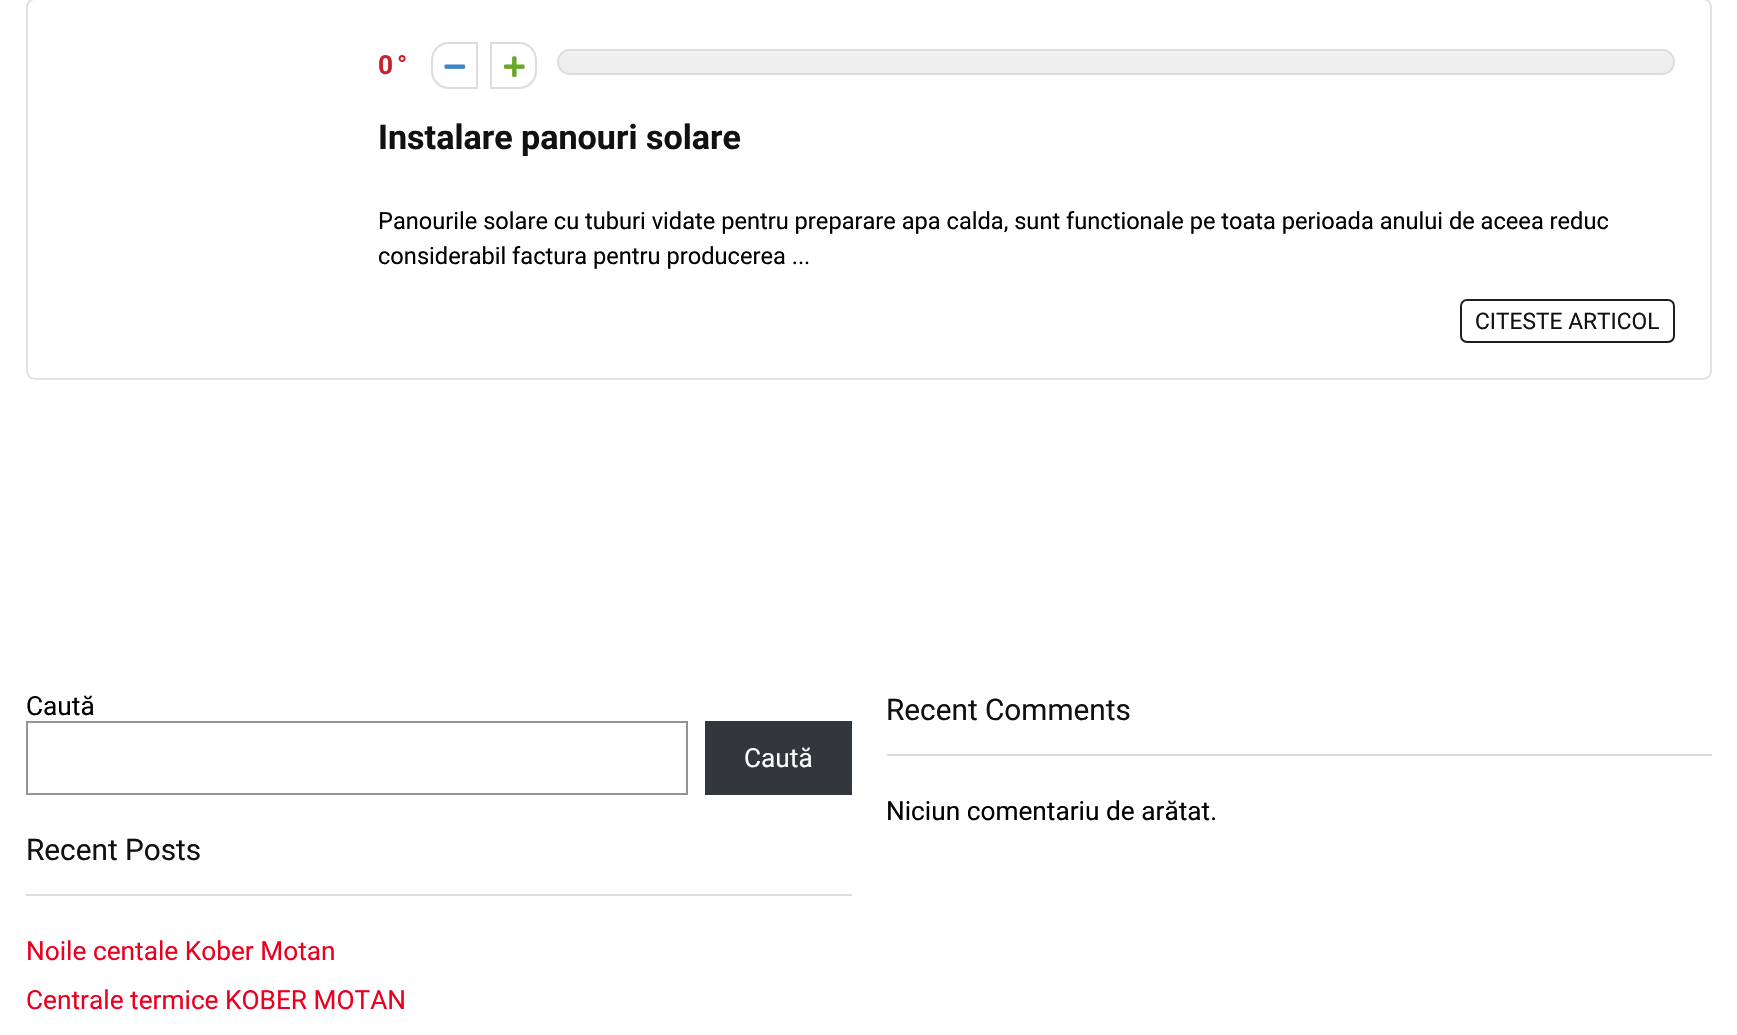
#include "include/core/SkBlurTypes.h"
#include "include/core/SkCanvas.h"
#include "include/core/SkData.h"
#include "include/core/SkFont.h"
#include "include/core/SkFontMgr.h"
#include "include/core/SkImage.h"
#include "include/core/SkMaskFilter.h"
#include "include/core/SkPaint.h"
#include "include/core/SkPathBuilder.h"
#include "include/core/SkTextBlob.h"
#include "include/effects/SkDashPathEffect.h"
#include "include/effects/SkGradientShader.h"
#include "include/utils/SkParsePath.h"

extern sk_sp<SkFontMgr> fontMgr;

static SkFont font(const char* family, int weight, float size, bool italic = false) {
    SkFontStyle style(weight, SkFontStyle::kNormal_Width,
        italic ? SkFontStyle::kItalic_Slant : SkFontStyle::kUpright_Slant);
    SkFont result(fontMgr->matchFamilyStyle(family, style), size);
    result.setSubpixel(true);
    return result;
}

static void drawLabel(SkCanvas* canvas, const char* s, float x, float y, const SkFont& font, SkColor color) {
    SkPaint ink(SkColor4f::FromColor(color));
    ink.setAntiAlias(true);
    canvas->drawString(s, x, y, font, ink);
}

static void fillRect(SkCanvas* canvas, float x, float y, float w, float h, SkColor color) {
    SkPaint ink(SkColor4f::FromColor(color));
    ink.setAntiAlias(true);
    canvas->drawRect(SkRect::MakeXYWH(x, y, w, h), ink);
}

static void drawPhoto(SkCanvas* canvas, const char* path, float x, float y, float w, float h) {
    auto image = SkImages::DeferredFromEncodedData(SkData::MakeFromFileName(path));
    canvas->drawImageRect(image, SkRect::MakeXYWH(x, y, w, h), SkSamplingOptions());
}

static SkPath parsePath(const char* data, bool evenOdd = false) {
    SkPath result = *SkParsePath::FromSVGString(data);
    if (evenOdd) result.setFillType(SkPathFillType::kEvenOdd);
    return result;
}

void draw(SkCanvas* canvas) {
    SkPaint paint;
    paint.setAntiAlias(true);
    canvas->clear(0xFFFFFFFF);
    paint.setStroke(true);
    paint.setStrokeWidth(2);
    paint.setColor(0xFFE3E3E3);
    canvas->drawRoundRect(SkRect::MakeXYWH(27, -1, 1684, 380), 8, 8, paint);
    SkFont font1 = font("Roboto", 700, 26.25f);
    drawLabel(canvas, "0", 378, 74, font1, 0xFFCA212A);
    drawLabel(canvas, "°", 397, 74, font1, 0xFFCA212A);
    paint.setColor(0xFFDCDDDE);
    canvas->drawPath(parsePath("M449 43H477V88H449C439.5 88 432 80.5 432 71V60C432 50.5 439.5 43 449 43Z"), paint);
    drawPhoto(canvas, "assets/img1.png", 444, 64, 22, 5);
    canvas->drawPath(parsePath("M491 43H519C528.5 43 536 50.5 536 60V71C536 80.5 528.5 88 519 88H491Z"), paint);
    drawPhoto(canvas, "assets/img2.png", 504, 56, 21, 21);
    canvas->save();
    canvas->clipPath(parsePath("M570 49H1662C1669 49 1675 55 1675 62C1675 69 1669 75 1662 75H570C563 75 557 69 557 62C557 55 563 49 570 49Z"), true);
    paint.setStroke(false);
    {
        const SkColor colors[] = {0xFFF5F5F5, 0xFFF0F0F0, 0xFFEEEEEE};
        const float stops[] = {0.08f, 0.08f, 1};
        const SkPoint ends[] = {{1116, 51}, {1116, 74}};
        paint.setShader(SkGradientShader::MakeLinear(ends, colors, stops, 3, SkTileMode::kClamp));
        paint.setAlpha(255);
    }
    canvas->drawRect(SkRect::MakeXYWH(557, 51, 1118, 23), paint);
    canvas->restore();
    paint.setStroke(true);
    paint.setShader(nullptr);
    paint.setColor(0xFFDDDDDD);
    canvas->drawRoundRect(SkRect::MakeXYWH(558, 50, 1116, 24), 12, 12, paint);
    SkFont font2 = font("Roboto", 700, 34.1f);
    drawLabel(canvas, "Instalare panouri solare", 378, 149, font2, 0xFF111111);
    SkFont font3 = font("Roboto", 400, 23.62f);
    drawLabel(canvas, "Panourile solare cu tuburi vidate pentru preparare apa calda, sunt functionale pe toata perioada anului de aceea reduc", 378, 229, font3, 0xFF000000);
    drawLabel(canvas, "considerabil factura pentru producerea ...", 378, 264, font3, 0xFF000000);
    paint.setColor(0xFF1E1E1E);
    canvas->drawRoundRect(SkRect::MakeXYWH(1461, 300, 213, 42), 6, 6, paint);
    SkFont font4 = font("Roboto", 400, 22.75f);
    drawLabel(canvas, "CITESTE ARTICOL", 1475, 329, font4, 0xFF111111);
    SkFont font5 = font("Roboto", 400, 26.25f);
    drawLabel(canvas, "Caută", 26, 715, font5, 0xFF000000);
    paint.setColor(0xFF949494);
    canvas->drawRect(SkRect::MakeXYWH(27, 722, 660, 72), paint);
    fillRect(canvas, 705, 721, 147, 74, 0xFF32373C);
    drawLabel(canvas, "Caută", 744, 767, font5, 0xFFFFFFFF);
    fillRect(canvas, 887, 754, 825, 2, 0xFFDDDDDD);
    SkFont font6 = font("Roboto", 400, 29.75f);
    drawLabel(canvas, "Recent Comments", 886, 720, font6, 0xFF111111);
    drawLabel(canvas, "Niciun comentariu de arătat.", 886, 820, font5, 0xFF000000);
    fillRect(canvas, 26, 894, 826, 2, 0xFFDDDDDD);
    drawLabel(canvas, "Recent Posts", 26, 860, font6, 0xFF111111);
    drawLabel(canvas, "Noile centale Kober Motan", 26, 960, font5, 0xFFEA0020);
    drawLabel(canvas, "Centrale termice KOBER MOTAN", 26, 1009, font5, 0xFFEA0020);
}
